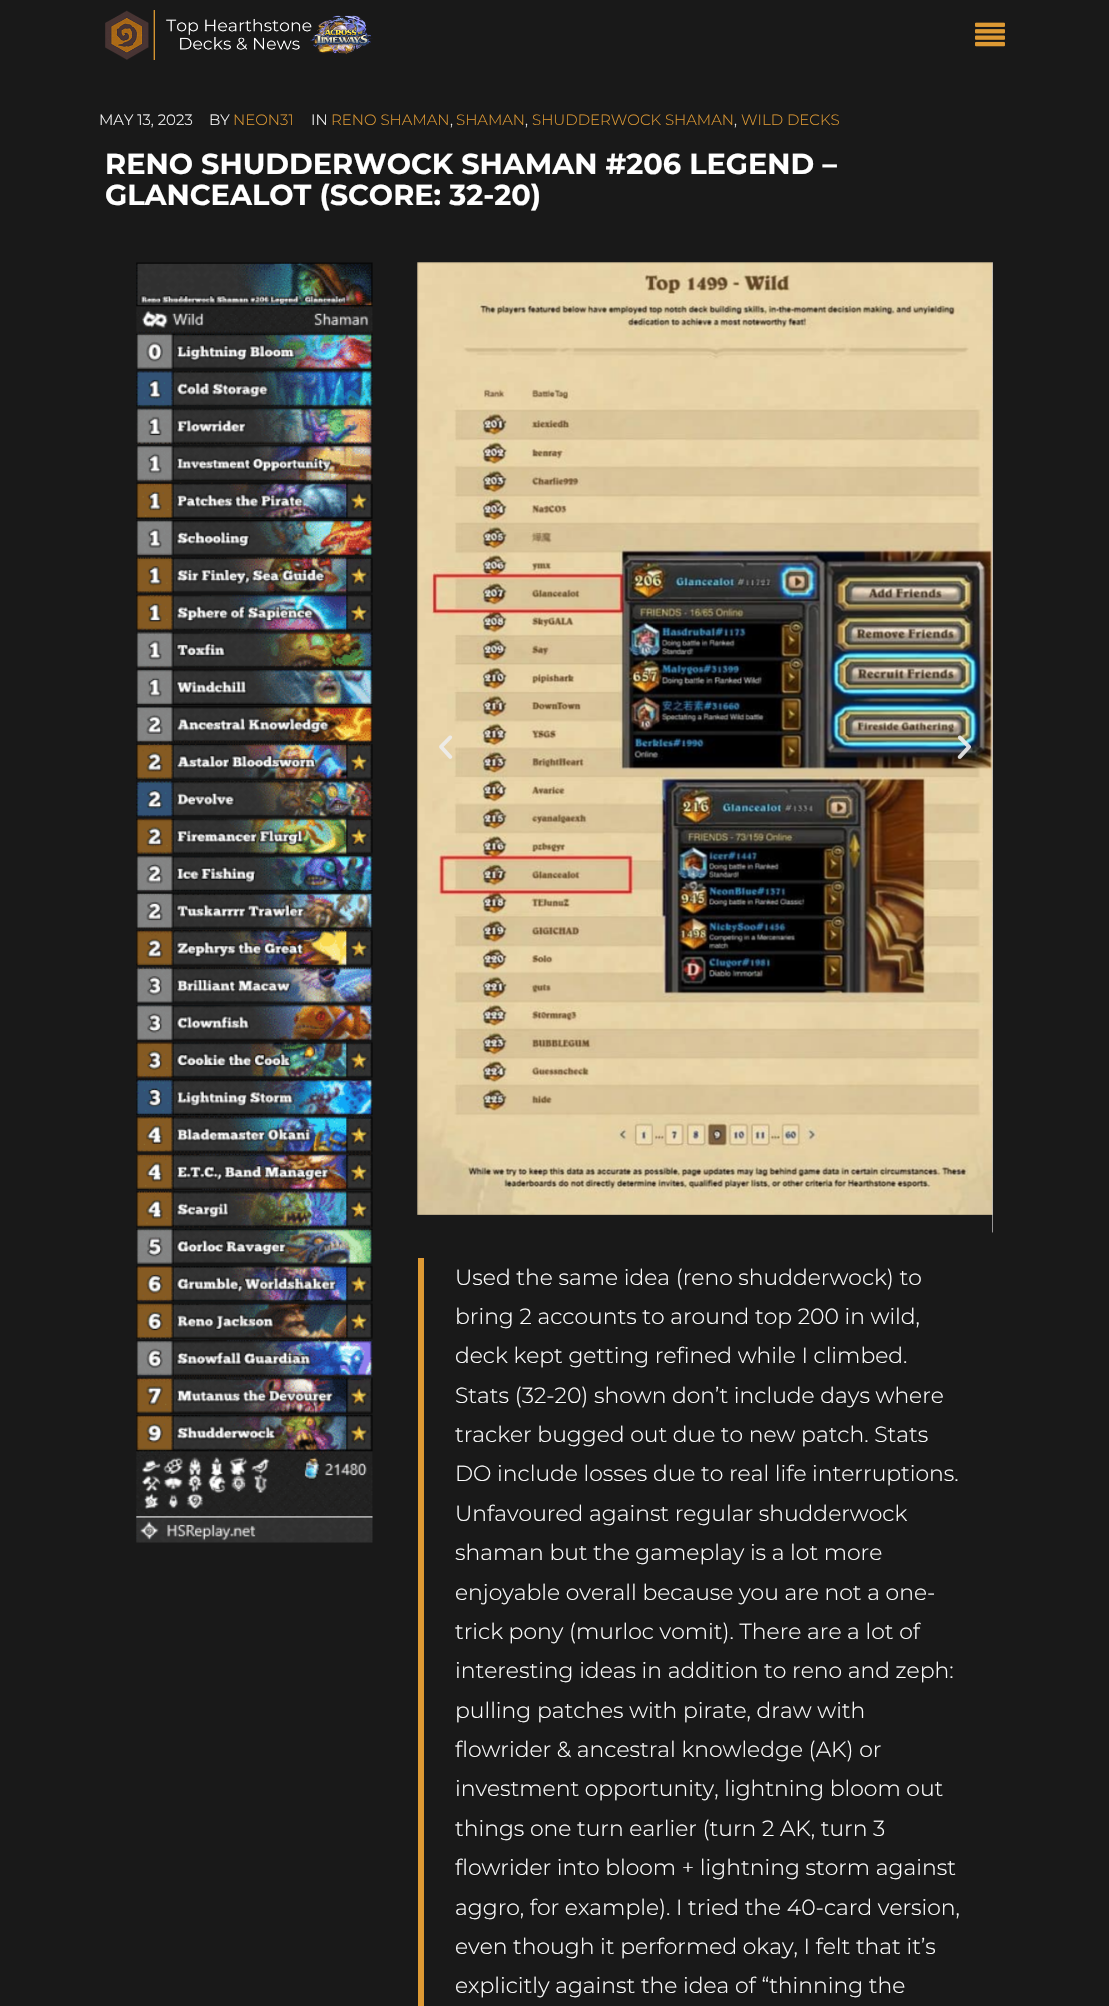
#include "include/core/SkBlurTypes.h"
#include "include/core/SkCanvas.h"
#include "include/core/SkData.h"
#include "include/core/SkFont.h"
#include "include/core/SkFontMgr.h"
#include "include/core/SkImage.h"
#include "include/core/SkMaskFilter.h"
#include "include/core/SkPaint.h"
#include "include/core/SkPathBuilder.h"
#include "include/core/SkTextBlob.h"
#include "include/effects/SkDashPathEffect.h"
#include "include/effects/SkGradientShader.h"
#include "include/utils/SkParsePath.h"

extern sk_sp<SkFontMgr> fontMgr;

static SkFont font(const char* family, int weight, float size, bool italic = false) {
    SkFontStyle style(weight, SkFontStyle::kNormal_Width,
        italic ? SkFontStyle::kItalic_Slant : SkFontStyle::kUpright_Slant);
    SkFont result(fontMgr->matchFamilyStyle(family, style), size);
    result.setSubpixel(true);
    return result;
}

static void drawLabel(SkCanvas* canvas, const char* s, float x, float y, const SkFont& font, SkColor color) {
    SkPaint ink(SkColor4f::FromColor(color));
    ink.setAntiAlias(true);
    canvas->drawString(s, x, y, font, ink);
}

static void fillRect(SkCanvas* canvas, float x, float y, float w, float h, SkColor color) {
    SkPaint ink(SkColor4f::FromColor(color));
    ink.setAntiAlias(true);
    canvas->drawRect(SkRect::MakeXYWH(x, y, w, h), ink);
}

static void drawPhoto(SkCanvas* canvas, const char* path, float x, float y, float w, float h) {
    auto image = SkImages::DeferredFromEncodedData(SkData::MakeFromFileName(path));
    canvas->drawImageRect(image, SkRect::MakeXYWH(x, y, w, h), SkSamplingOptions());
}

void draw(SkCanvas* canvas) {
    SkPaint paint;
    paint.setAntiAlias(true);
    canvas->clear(0xFF191919);
    drawPhoto(canvas, "assets/img1.png", 105, 10, 268, 50);
    drawPhoto(canvas, "assets/img2.png", 975, 22, 30, 25);
    SkFont font1 = font("Montserrat", 300, 15);
    drawLabel(canvas, "MAY 13, 2023", 99, 125, font1, 0xFFFFFFFF);
    drawLabel(canvas, "BY", 209, 125, font1, 0xFFFFFFFF);
    drawLabel(canvas, "NEON31", 233, 125, font1, 0xFFDD9933);
    drawLabel(canvas, "IN", 311, 125, font1, 0xFFFFFFFF);
    drawLabel(canvas, "RENO SHAMAN", 331, 125, font1, 0xFFDD9933);
    drawLabel(canvas, ",", 450, 125, font1, 0xFFFFFFFF);
    drawLabel(canvas, "SHAMAN", 456, 125, font1, 0xFFDD9933);
    drawLabel(canvas, ",", 525, 125, font1, 0xFFFFFFFF);
    drawLabel(canvas, "SHUDDERWOCK SHAMAN", 532, 125, font1, 0xFFDD9933);
    drawLabel(canvas, ",", 734, 125, font1, 0xFFFFFFFF);
    drawLabel(canvas, "WILD DECKS", 741, 125, font1, 0xFFDD9933);
    SkFont font2 = font("Montserrat", 700, 28.75f);
    drawLabel(canvas, "RENO SHUDDERWOCK SHAMAN #206 LEGEND –", 105, 174, font2, 0xFFFFFFFF);
    drawLabel(canvas, "GLANCEALOT (SCORE: 32-20)", 105, 205, font2, 0xFFFFFFFF);
    drawPhoto(canvas, "assets/img3.png", 136, 262, 237, 1281);
    drawPhoto(canvas, "assets/img4.png", 417, 262, 576, 953);
    drawPhoto(canvas, "assets/img5.png", 992, 262, 1, 971);
    drawPhoto(canvas, "assets/img6.png", 439, 735, 14, 24);
    drawPhoto(canvas, "assets/img7.png", 957, 735, 14, 24);
    fillRect(canvas, 418, 1258, 6, 748, 0xFFDD9933);
    SkFont font3 = font("Montserrat", 300, 21.9f);
    drawLabel(canvas, "Used the same idea (reno shudderwock) to", 455, 1285, font3, 0xFFFFFFFF);
    drawLabel(canvas, "bring 2 accounts to around top 200 in wild,", 455, 1324, font3, 0xFFFFFFFF);
    drawLabel(canvas, "deck kept getting refined while I climbed.", 455, 1363, font3, 0xFFFFFFFF);
    drawLabel(canvas, "Stats (32-20) shown don’t include days where", 455, 1403, font3, 0xFFFFFFFF);
    drawLabel(canvas, "tracker bugged out due to new patch. Stats", 455, 1442, font3, 0xFFFFFFFF);
    drawLabel(canvas, "DO include losses due to real life interruptions.", 455, 1481, font3, 0xFFFFFFFF);
    drawLabel(canvas, "Unfavoured against regular shudderwock", 455, 1521, font3, 0xFFFFFFFF);
    drawLabel(canvas, "shaman but the gameplay is a lot more", 455, 1560, font3, 0xFFFFFFFF);
    drawLabel(canvas, "enjoyable overall because you are not a one-", 455, 1600, font3, 0xFFFFFFFF);
    drawLabel(canvas, "trick pony (murloc vomit). There are a lot of", 455, 1639, font3, 0xFFFFFFFF);
    drawLabel(canvas, "interesting ideas in addition to reno and zeph:", 455, 1678, font3, 0xFFFFFFFF);
    drawLabel(canvas, "pulling patches with pirate, draw with", 455, 1718, font3, 0xFFFFFFFF);
    drawLabel(canvas, "flowrider & ancestral knowledge (AK) or", 455, 1757, font3, 0xFFFFFFFF);
    drawLabel(canvas, "investment opportunity, lightning bloom out", 455, 1796, font3, 0xFFFFFFFF);
    drawLabel(canvas, "things one turn earlier (turn 2 AK, turn 3", 455, 1836, font3, 0xFFFFFFFF);
    drawLabel(canvas, "flowrider into bloom + lightning storm against", 455, 1875, font3, 0xFFFFFFFF);
    drawLabel(canvas, "aggro, for example). I tried the 40-card version,", 455, 1915, font3, 0xFFFFFFFF);
    drawLabel(canvas, "even though it performed okay, I felt that it’s", 455, 1954, font3, 0xFFFFFFFF);
    drawLabel(canvas, "explicitly against the idea of “thinning the", 455, 1993, font3, 0xFFFFFFFF);
}
